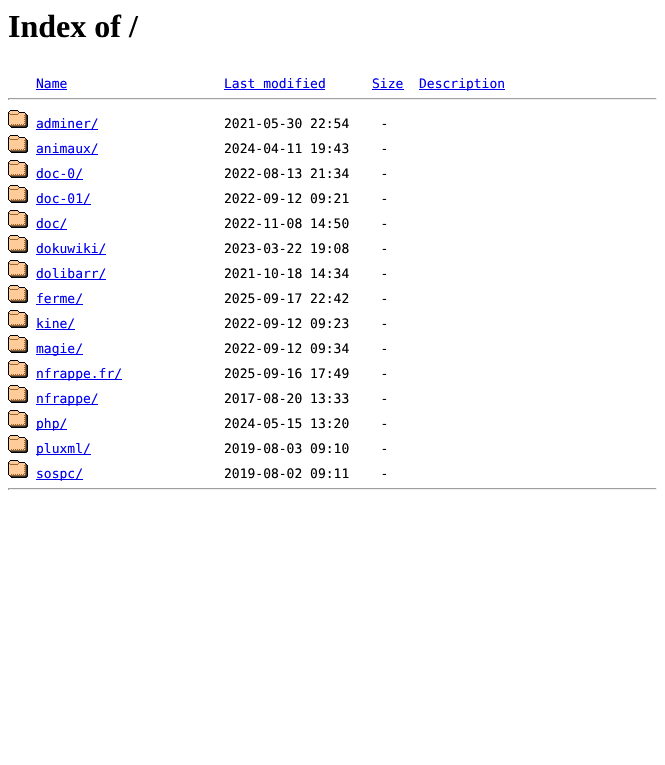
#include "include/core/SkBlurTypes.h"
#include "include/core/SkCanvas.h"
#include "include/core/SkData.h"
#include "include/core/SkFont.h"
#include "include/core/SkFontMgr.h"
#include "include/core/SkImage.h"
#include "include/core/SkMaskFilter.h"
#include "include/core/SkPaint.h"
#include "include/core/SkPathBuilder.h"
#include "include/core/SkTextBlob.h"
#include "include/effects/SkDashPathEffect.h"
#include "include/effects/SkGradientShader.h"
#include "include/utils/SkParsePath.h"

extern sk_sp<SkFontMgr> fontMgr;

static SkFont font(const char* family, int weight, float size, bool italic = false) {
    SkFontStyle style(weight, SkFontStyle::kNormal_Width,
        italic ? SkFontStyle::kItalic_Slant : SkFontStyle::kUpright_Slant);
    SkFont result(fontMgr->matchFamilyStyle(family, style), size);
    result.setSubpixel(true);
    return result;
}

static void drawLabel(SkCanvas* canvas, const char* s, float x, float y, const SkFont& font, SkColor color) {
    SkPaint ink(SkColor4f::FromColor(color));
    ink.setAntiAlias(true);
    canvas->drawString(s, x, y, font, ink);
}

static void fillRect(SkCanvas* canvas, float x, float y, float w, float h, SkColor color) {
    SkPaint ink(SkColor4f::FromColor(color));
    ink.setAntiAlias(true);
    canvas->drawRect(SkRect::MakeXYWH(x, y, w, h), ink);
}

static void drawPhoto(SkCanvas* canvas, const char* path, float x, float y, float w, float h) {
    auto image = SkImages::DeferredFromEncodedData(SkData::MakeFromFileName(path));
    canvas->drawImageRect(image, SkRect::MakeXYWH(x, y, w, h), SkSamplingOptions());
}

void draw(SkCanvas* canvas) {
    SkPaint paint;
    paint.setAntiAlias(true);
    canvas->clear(0xFFFFFFFF);
    SkFont font1 = font("Liberation Serif", 700, 32);
    drawLabel(canvas, "Index of /", 8, 37, font1, 0xFF000000);
    SkFont font2 = font("DejaVu Sans Mono", 400, 13);
    drawLabel(canvas, "Name", 36, 88, font2, 0xFF0000EE);
    fillRect(canvas, 36, 89, 31, 1, 0xFF0000EE);
    drawLabel(canvas, "Last modified", 224, 88, font2, 0xFF0000EE);
    fillRect(canvas, 224, 89, 101, 1, 0xFF0000EE);
    drawLabel(canvas, "Size", 372, 88, font2, 0xFF0000EE);
    fillRect(canvas, 372, 89, 32, 1, 0xFF0000EE);
    fillRect(canvas, 419, 89, 86, 1, 0xFF0000EE);
    drawLabel(canvas, "Description", 419, 88, font2, 0xFF0000EE);
    fillRect(canvas, 8, 98, 649, 1, 0xFF9F9F9F);
    fillRect(canvas, 656, 98, 1, 2, 0xFFEEEEEE);
    fillRect(canvas, 8, 99, 649, 1, 0xFFEEEEEE);
    fillRect(canvas, 8, 98, 1, 2, 0xFF9F9F9F);
    drawPhoto(canvas, "assets/img1.png", 8, 110, 20, 18);
    fillRect(canvas, 36, 129, 62, 1, 0xFF0000EE);
    drawLabel(canvas, "adminer/", 36, 128, font2, 0xFF0000EE);
    drawLabel(canvas, "2021-05-30 22:54    -", 224, 128, font2, 0xFF000000);
    drawPhoto(canvas, "assets/img1.png", 8, 135, 20, 18);
    fillRect(canvas, 36, 154, 62, 1, 0xFF0000EE);
    drawLabel(canvas, "animaux/", 36, 153, font2, 0xFF0000EE);
    drawLabel(canvas, "2024-04-11 19:43    -", 224, 153, font2, 0xFF000000);
    drawPhoto(canvas, "assets/img1.png", 8, 160, 20, 18);
    fillRect(canvas, 36, 179, 47, 1, 0xFF0000EE);
    drawLabel(canvas, "doc-0/", 36, 178, font2, 0xFF0000EE);
    drawLabel(canvas, "2022-08-13 21:34    -", 224, 178, font2, 0xFF000000);
    drawPhoto(canvas, "assets/img1.png", 8, 185, 20, 18);
    fillRect(canvas, 36, 204, 55, 1, 0xFF0000EE);
    drawLabel(canvas, "doc-01/", 36, 203, font2, 0xFF0000EE);
    drawLabel(canvas, "2022-09-12 09:21    -", 224, 203, font2, 0xFF000000);
    drawPhoto(canvas, "assets/img1.png", 8, 210, 20, 18);
    fillRect(canvas, 36, 229, 31, 1, 0xFF0000EE);
    drawLabel(canvas, "doc/", 36, 228, font2, 0xFF0000EE);
    drawLabel(canvas, "2022-11-08 14:50    -", 224, 228, font2, 0xFF000000);
    drawPhoto(canvas, "assets/img1.png", 8, 235, 20, 18);
    fillRect(canvas, 36, 254, 70, 1, 0xFF0000EE);
    drawLabel(canvas, "dokuwiki/", 36, 253, font2, 0xFF0000EE);
    drawLabel(canvas, "2023-03-22 19:08    -", 224, 253, font2, 0xFF000000);
    drawPhoto(canvas, "assets/img1.png", 8, 260, 20, 18);
    fillRect(canvas, 36, 279, 70, 1, 0xFF0000EE);
    drawLabel(canvas, "dolibarr/", 36, 278, font2, 0xFF0000EE);
    drawLabel(canvas, "2021-10-18 14:34    -", 224, 278, font2, 0xFF000000);
    drawPhoto(canvas, "assets/img1.png", 8, 285, 20, 18);
    fillRect(canvas, 36, 304, 47, 1, 0xFF0000EE);
    drawLabel(canvas, "ferme/", 36, 303, font2, 0xFF0000EE);
    drawLabel(canvas, "2025-09-17 22:42    -", 224, 303, font2, 0xFF000000);
    drawPhoto(canvas, "assets/img1.png", 8, 310, 20, 18);
    fillRect(canvas, 36, 329, 39, 1, 0xFF0000EE);
    drawLabel(canvas, "kine/", 36, 328, font2, 0xFF0000EE);
    drawLabel(canvas, "2022-09-12 09:23    -", 224, 328, font2, 0xFF000000);
    drawPhoto(canvas, "assets/img1.png", 8, 335, 20, 18);
    fillRect(canvas, 36, 354, 47, 1, 0xFF0000EE);
    drawLabel(canvas, "magie/", 36, 353, font2, 0xFF0000EE);
    drawLabel(canvas, "2022-09-12 09:34    -", 224, 353, font2, 0xFF000000);
    drawPhoto(canvas, "assets/img1.png", 8, 360, 20, 18);
    fillRect(canvas, 36, 379, 86, 1, 0xFF0000EE);
    drawLabel(canvas, "nfrappe.fr/", 36, 378, font2, 0xFF0000EE);
    drawLabel(canvas, "2025-09-16 17:49    -", 224, 378, font2, 0xFF000000);
    drawPhoto(canvas, "assets/img1.png", 8, 385, 20, 18);
    fillRect(canvas, 36, 404, 62, 1, 0xFF0000EE);
    drawLabel(canvas, "nfrappe/", 36, 403, font2, 0xFF0000EE);
    drawLabel(canvas, "2017-08-20 13:33    -", 224, 403, font2, 0xFF000000);
    drawPhoto(canvas, "assets/img1.png", 8, 410, 20, 18);
    fillRect(canvas, 36, 429, 31, 1, 0xFF0000EE);
    drawLabel(canvas, "php/", 36, 428, font2, 0xFF0000EE);
    drawLabel(canvas, "2024-05-15 13:20    -", 224, 428, font2, 0xFF000000);
    drawPhoto(canvas, "assets/img1.png", 8, 435, 20, 18);
    fillRect(canvas, 36, 454, 55, 1, 0xFF0000EE);
    drawLabel(canvas, "pluxml/", 36, 453, font2, 0xFF0000EE);
    drawLabel(canvas, "2019-08-03 09:10    -", 224, 453, font2, 0xFF000000);
    drawPhoto(canvas, "assets/img1.png", 8, 460, 20, 18);
    fillRect(canvas, 36, 479, 47, 1, 0xFF0000EE);
    drawLabel(canvas, "sospc/", 36, 478, font2, 0xFF0000EE);
    drawLabel(canvas, "2019-08-02 09:11    -", 224, 478, font2, 0xFF000000);
    fillRect(canvas, 8, 488, 649, 1, 0xFF9F9F9F);
    fillRect(canvas, 656, 488, 1, 2, 0xFFEEEEEE);
    fillRect(canvas, 8, 489, 649, 1, 0xFFEEEEEE);
    fillRect(canvas, 8, 488, 1, 2, 0xFF9F9F9F);
}
